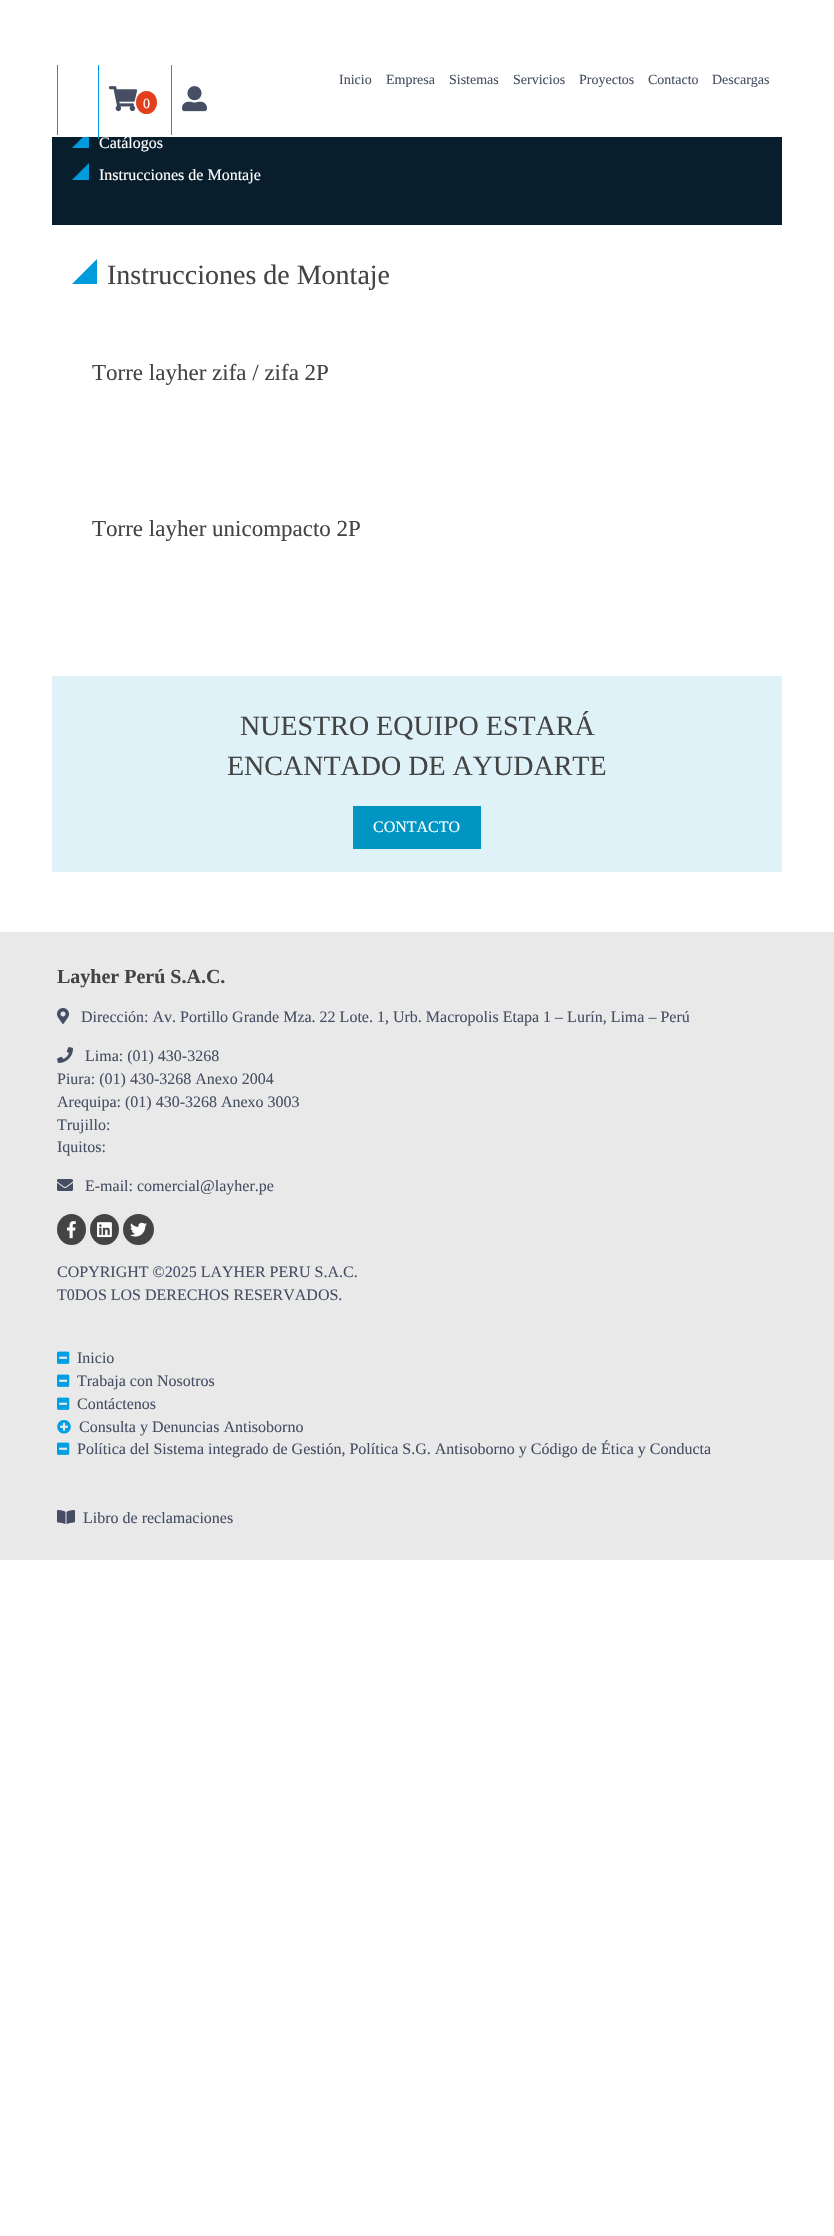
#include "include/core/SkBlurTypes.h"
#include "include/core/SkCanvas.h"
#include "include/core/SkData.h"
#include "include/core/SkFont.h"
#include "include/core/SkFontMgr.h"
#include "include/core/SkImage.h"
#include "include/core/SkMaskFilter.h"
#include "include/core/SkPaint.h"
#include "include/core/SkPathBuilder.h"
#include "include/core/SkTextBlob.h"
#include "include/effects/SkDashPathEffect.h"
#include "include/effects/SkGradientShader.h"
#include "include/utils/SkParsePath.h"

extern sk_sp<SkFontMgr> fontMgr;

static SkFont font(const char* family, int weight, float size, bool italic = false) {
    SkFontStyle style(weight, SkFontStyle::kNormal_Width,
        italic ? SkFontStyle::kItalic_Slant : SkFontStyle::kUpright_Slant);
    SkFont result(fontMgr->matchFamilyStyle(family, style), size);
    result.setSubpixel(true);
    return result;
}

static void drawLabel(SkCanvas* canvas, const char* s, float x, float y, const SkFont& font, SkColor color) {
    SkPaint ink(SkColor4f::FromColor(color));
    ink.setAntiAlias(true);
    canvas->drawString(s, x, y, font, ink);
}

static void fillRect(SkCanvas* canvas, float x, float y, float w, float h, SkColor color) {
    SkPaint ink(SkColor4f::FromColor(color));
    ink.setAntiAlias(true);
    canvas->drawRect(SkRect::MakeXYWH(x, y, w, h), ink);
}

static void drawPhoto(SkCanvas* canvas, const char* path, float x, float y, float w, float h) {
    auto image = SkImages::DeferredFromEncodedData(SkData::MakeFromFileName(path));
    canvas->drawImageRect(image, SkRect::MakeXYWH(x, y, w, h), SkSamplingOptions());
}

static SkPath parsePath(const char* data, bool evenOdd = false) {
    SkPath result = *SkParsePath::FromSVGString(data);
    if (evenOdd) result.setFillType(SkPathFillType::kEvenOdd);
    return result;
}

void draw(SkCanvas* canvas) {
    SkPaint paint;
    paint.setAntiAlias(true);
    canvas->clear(0xFFFFFFFF);
    fillRect(canvas, 52, 137, 730, 88, 0xFF091E2D);
    paint.setColor(0xFF009BDB);
    canvas->drawPath(parsePath("M89 131V148H72Z"), paint);
    fillRect(canvas, 83, 131, 6, 6, 0xFFFFFFFF);
    SkFont font1 = font("Liberation Serif", 400, 14);
    drawLabel(canvas, "Inicio", 339, 84, font1, 0xFF454E63);
    drawLabel(canvas, "Empresa", 386, 84, font1, 0xFF454E63);
    drawLabel(canvas, "Sistemas", 449, 84, font1, 0xFF454E63);
    drawLabel(canvas, "Servicios", 513, 84, font1, 0xFF454E63);
    drawLabel(canvas, "Proyectos", 579, 84, font1, 0xFF454E63);
    drawLabel(canvas, "Contacto", 648, 84, font1, 0xFF454E63);
    drawLabel(canvas, "Descargas", 712, 84, font1, 0xFF454E63);
    fillRect(canvas, 57, 65, 1, 70, 0xFF009EE3);
    fillRect(canvas, 98, 65, 1, 74, 0xFF009EE3);
    drawPhoto(canvas, "assets/img1.png", 109, 86, 29, 26);
    paint.setColor(0xFFE2401C);
    canvas->drawOval(SkRect::MakeXYWH(136, 91, 21, 23), paint);
    drawLabel(canvas, "0", 143, 108, font1, 0xFFFFFFFF);
    fillRect(canvas, 171, 65, 1, 70, 0xFF009EE3);
    drawPhoto(canvas, "assets/img2.png", 182, 86, 25, 26);
    SkFont font2 = font("Liberation Serif", 400, 16);
    drawLabel(canvas, "Catálogos", 99, 148, font2, 0xFFFFFFFF);
    paint.setColor(0xFF009BDB);
    canvas->drawPath(parsePath("M89 163V180H72Z"), paint);
    drawLabel(canvas, "Instrucciones de Montaje", 99, 180, font2, 0xFFFFFFFF);
    canvas->drawPath(parsePath("M97 259V284H72Z"), paint);
    SkFont font3 = font("Liberation Serif", 400, 28);
    drawLabel(canvas, "Instrucciones de Montaje", 107, 284, font3, 0xFF444444);
    SkFont font4 = font("Liberation Serif", 400, 23);
    drawLabel(canvas, "Torre layher zifa / zifa 2P", 92, 380, font4, 0xFF444444);
    drawLabel(canvas, "Torre layher unicompacto 2P", 92, 536, font4, 0xFF444444);
    fillRect(canvas, 52, 676, 730, 196, 0xFFDFF2F8);
    drawLabel(canvas, "NUESTRO EQUIPO ESTARÁ", 240, 735, font3, 0xFF444444);
    drawLabel(canvas, "ENCANTADO DE AYUDARTE", 227, 775, font3, 0xFF444444);
    fillRect(canvas, 353, 806, 128, 43, 0xFF0095C2);
    drawLabel(canvas, "CONTACTO", 373, 832, font2, 0xFFFFFFFF);
    fillRect(canvas, 0, 932, 834, 628, 0xFFE9E9E9);
    SkFont font5 = font("Liberation Serif", 700, 20);
    drawLabel(canvas, "Layher Perú S.A.C.", 57, 983, font5, 0xFF444444);
    drawPhoto(canvas, "assets/img3.png", 57, 1008, 12, 16);
    drawLabel(canvas, "Dirección: Av. Portillo Grande Mza. 22 Lote. 1, Urb. Macropolis Etapa 1 – Lurín, Lima – Perú", 81, 1022, font2, 0xFF454E63);
    drawPhoto(canvas, "assets/img4.png", 57, 1047, 16, 16);
    drawLabel(canvas, "Lima: (01) 430-3268", 85, 1061, font2, 0xFF454E63);
    drawLabel(canvas, "Piura: (01) 430-3268 Anexo 2004", 57, 1084, font2, 0xFF454E63);
    drawLabel(canvas, "Arequipa: (01) 430-3268 Anexo 3003", 57, 1107, font2, 0xFF454E63);
    drawLabel(canvas, "Trujillo:", 57, 1130, font2, 0xFF454E63);
    drawLabel(canvas, "Iquitos:", 57, 1152, font2, 0xFF454E63);
    drawPhoto(canvas, "assets/img5.png", 57, 1179, 16, 12);
    drawLabel(canvas, "E-mail: comercial@layher.pe", 85, 1191, font2, 0xFF454E63);
    paint.setColor(0xFF444444);
    canvas->drawOval(SkRect::MakeXYWH(57, 1214, 29, 31), paint);
    drawPhoto(canvas, "assets/img6.png", 67, 1221, 9, 18);
    canvas->drawOval(SkRect::MakeXYWH(90, 1214, 29, 31), paint);
    drawPhoto(canvas, "assets/img7.png", 97, 1222, 15, 16);
    canvas->drawCircle(138.5f, 1229.5f, 15.5f, paint);
    drawPhoto(canvas, "assets/img8.png", 130, 1222, 17, 15);
    drawLabel(canvas, "COPYRIGHT ©2025 LAYHER PERU S.A.C.", 57, 1277, font2, 0xFF454E63);
    drawLabel(canvas, "T0DOS LOS DERECHOS RESERVADOS.", 57, 1300, font2, 0xFF454E63);
    drawPhoto(canvas, "assets/img9.png", 57, 1351, 13, 13);
    drawLabel(canvas, "Inicio", 77, 1363, font2, 0xFF454E63);
    drawPhoto(canvas, "assets/img9.png", 57, 1374, 13, 13);
    drawLabel(canvas, "Trabaja con Nosotros", 77, 1386, font2, 0xFF454E63);
    drawPhoto(canvas, "assets/img9.png", 57, 1397, 13, 13);
    drawLabel(canvas, "Contáctenos", 77, 1409, font2, 0xFF454E63);
    drawPhoto(canvas, "assets/img10.png", 57, 1420, 14, 14);
    drawLabel(canvas, "Consulta y Denuncias Antisoborno", 79, 1432, font2, 0xFF454E63);
    drawPhoto(canvas, "assets/img9.png", 57, 1442, 13, 13);
    drawLabel(canvas, "Política del Sistema integrado de Gestión, Política S.G. Antisoborno y Código de Ética y Conducta", 77, 1454, font2, 0xFF454E63);
    drawPhoto(canvas, "assets/img11.png", 57, 1510, 18, 14);
    drawLabel(canvas, "Libro de reclamaciones", 83, 1523, font2, 0xFF454E63);
}
